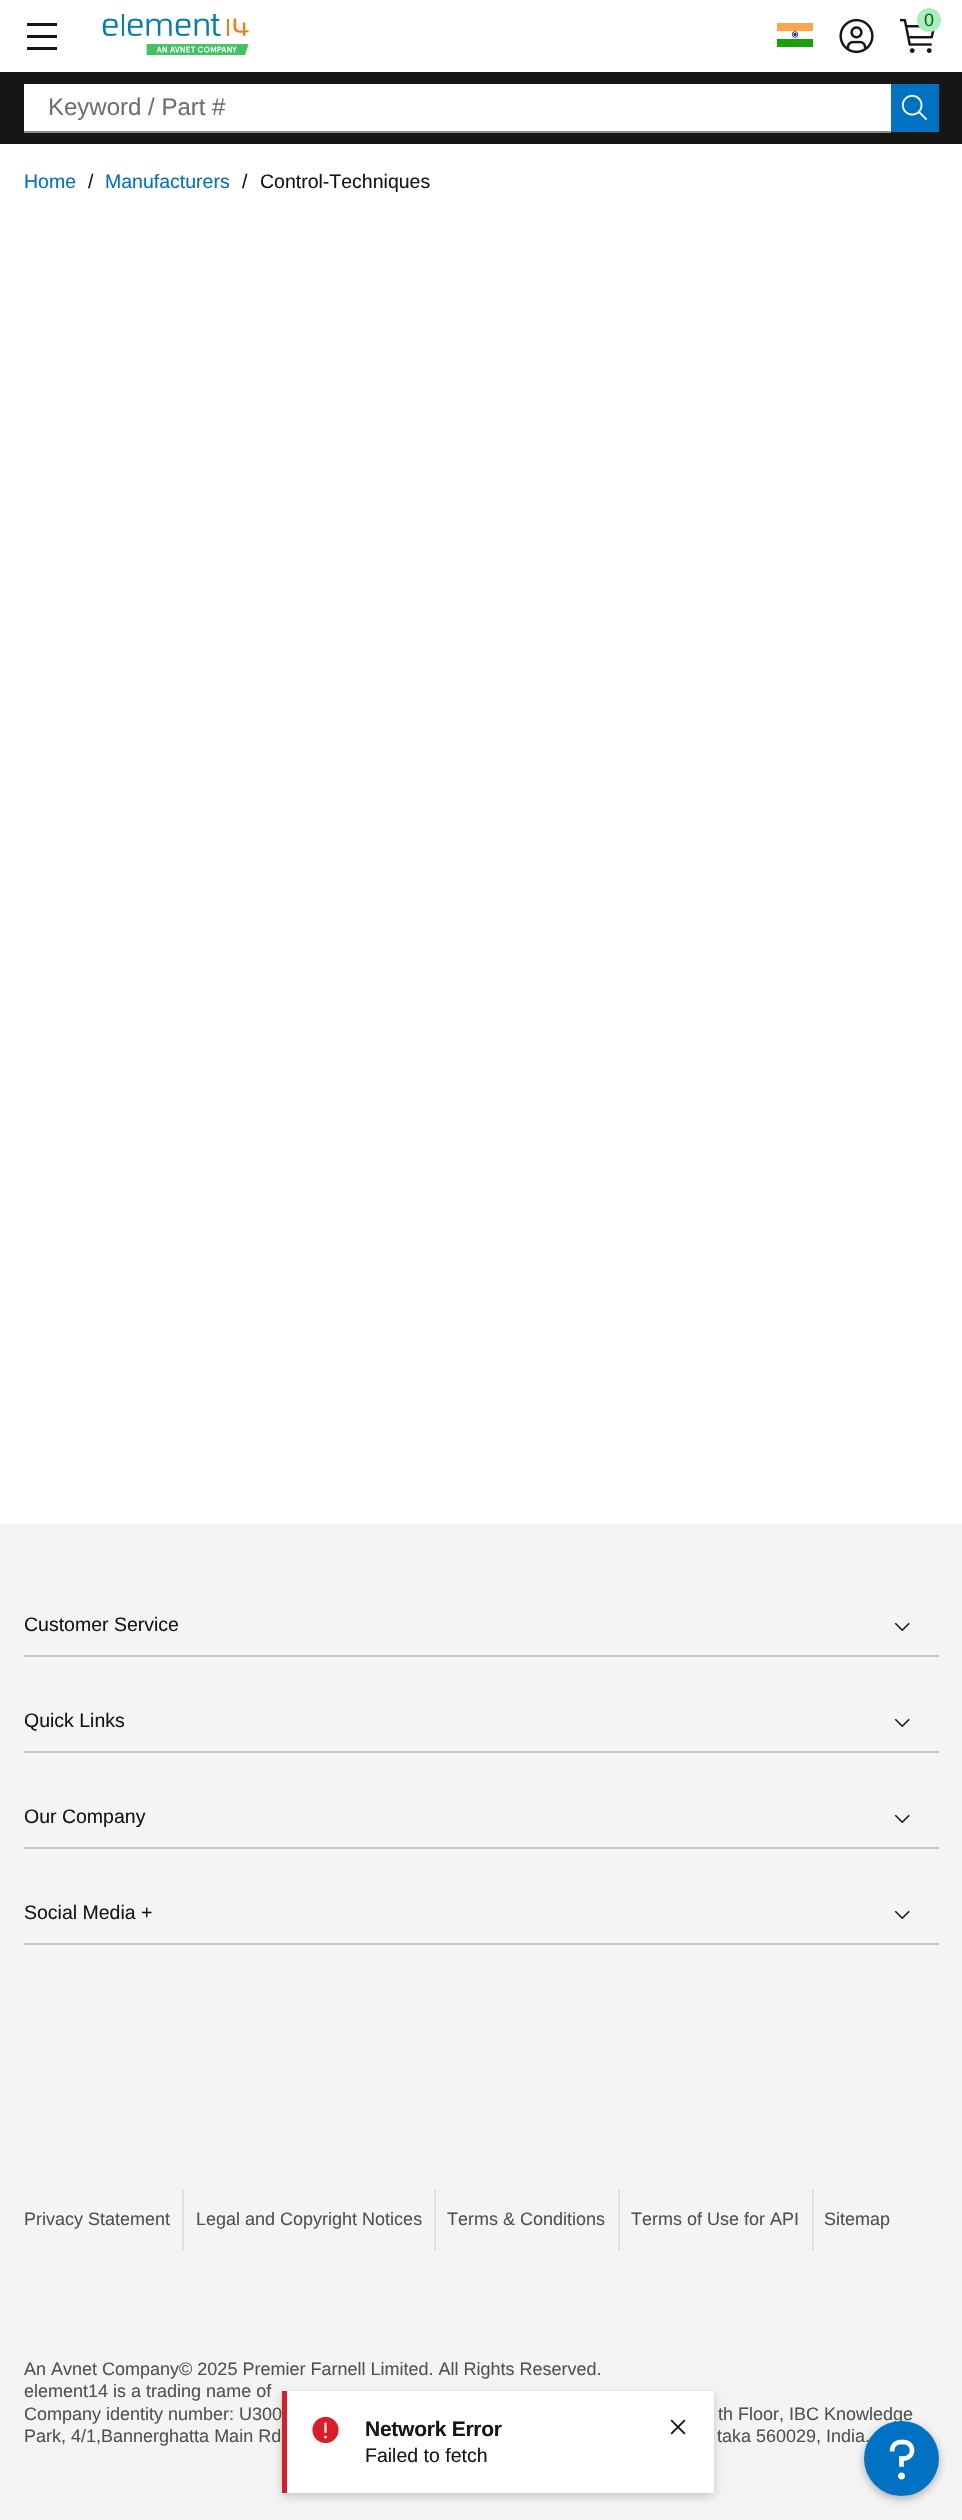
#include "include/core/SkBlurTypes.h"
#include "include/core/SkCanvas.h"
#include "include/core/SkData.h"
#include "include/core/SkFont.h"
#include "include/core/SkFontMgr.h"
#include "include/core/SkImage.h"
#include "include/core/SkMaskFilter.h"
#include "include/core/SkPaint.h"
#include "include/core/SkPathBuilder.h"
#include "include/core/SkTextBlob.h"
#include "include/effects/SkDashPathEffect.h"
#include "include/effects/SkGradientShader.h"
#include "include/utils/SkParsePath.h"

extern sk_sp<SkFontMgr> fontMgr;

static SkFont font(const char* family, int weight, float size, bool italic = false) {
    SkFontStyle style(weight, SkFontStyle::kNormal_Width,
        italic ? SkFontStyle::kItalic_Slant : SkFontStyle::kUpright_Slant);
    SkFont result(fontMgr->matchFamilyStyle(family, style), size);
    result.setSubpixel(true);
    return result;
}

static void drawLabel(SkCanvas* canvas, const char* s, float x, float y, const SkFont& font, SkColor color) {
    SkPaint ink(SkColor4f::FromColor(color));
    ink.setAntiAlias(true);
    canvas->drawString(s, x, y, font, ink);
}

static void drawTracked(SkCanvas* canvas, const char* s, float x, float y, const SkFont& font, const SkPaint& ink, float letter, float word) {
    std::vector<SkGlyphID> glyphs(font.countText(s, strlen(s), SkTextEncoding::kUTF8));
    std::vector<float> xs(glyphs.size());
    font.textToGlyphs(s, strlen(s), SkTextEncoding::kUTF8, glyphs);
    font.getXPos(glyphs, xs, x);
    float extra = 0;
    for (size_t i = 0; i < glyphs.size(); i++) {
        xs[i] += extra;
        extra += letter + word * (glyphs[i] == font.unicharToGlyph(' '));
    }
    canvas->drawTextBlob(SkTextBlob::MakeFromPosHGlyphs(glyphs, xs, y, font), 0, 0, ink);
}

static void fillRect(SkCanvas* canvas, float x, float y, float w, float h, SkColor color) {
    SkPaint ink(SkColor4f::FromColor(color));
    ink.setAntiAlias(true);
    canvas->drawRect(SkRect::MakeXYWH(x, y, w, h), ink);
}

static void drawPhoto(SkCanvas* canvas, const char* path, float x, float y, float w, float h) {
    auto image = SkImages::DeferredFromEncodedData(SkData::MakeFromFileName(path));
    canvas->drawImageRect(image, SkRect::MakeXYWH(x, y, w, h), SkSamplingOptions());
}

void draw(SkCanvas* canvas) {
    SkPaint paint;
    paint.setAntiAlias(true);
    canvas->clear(0xFFFFFFFF);
    fillRect(canvas, 27, 23, 30, 3, 0xFF161616);
    fillRect(canvas, 27, 35, 30, 3, 0xFF161616);
    fillRect(canvas, 27, 47, 30, 3, 0xFF161616);
    drawPhoto(canvas, "assets/img1.png", 102, 14, 147, 41);
    drawPhoto(canvas, "assets/img2.png", 777, 23, 36, 24);
    drawPhoto(canvas, "assets/img3.png", 839, 18, 35, 36);
    drawPhoto(canvas, "assets/img4.png", 900, 18, 35, 35);
    paint.setColor(0xFFA7F0BA);
    canvas->drawCircle(929, 20, 12, paint);
    SkFont font1 = font("Liberation Sans", 400, 18);
    drawLabel(canvas, "0", 924, 26, font1, 0xFF0E6027);
    fillRect(canvas, 0, 72, 962, 72, 0xFF161616);
    fillRect(canvas, 24, 84, 867, 47, 0xFFFFFFFF);
    fillRect(canvas, 24, 131, 867, 2, 0xFF8D8D8D);
    SkFont font2 = font("Liberation Sans", 400, 24);
    drawLabel(canvas, "Keyword / Part #", 48, 115, font2, 0xFF6F6F6F);
    fillRect(canvas, 891, 84, 48, 48, 0xFF0072C3);
    drawPhoto(canvas, "assets/img5.png", 901, 94, 27, 27);
    SkFont font3 = font("Liberation Sans", 400, 19.5f);
    drawLabel(canvas, "Home", 24, 188, font3, 0xFF0072C3);
    drawLabel(canvas, "/", 88, 188, font3, 0xFF161616);
    drawLabel(canvas, "Manufacturers", 105, 188, font3, 0xFF0072C3);
    drawLabel(canvas, "/", 242, 188, font3, 0xFF161616);
    drawLabel(canvas, "Control-Techniques", 260, 188, font3, 0xFF161616);
    fillRect(canvas, 0, 1524, 962, 996, 0xFFF4F4F4);
    paint.setColor(0x33000000);
    paint.setMaskFilter(SkMaskFilter::MakeBlur(kNormal_SkBlurStyle, 4.5f));
    canvas->drawRect(SkRect::MakeXYWH(282, 2394, 432, 102), paint);
    paint.setMaskFilter(nullptr);
    fillRect(canvas, 287, 2391, 427, 102, 0xFFFFFFFF);
    fillRect(canvas, 282, 2391, 5, 102, 0xFFDA1E28);
    drawPhoto(canvas, "assets/img6.png", 312, 2416, 27, 28);
    SkFont font4 = font("Liberation Sans", 700, 21);
    paint.setColor(0xFF161616);
    drawTracked(canvas, "Network Error", 365, 2436, font4, paint, -0.25f, 0);
    drawLabel(canvas, "Failed to fetch", 365, 2462, font3, 0xFF161616);
    drawPhoto(canvas, "assets/img7.png", 670, 2419, 16, 16);
    fillRect(canvas, 24, 1655, 915, 2, 0xFFC6C6C6);
    drawLabel(canvas, "Customer Service", 24, 1631, font3, 0xFF161616);
    drawPhoto(canvas, "assets/img8.png", 894, 1622, 16, 10);
    fillRect(canvas, 24, 1751, 915, 2, 0xFFC6C6C6);
    drawLabel(canvas, "Quick Links", 24, 1727, font3, 0xFF161616);
    drawPhoto(canvas, "assets/img8.png", 894, 1718, 16, 10);
    fillRect(canvas, 24, 1847, 915, 2, 0xFFC6C6C6);
    drawLabel(canvas, "Our Company", 24, 1823, font3, 0xFF161616);
    drawPhoto(canvas, "assets/img8.png", 894, 1814, 16, 10);
    fillRect(canvas, 24, 1943, 915, 2, 0xFFC6C6C6);
    drawLabel(canvas, "Social Media +", 24, 1919, font3, 0xFF161616);
    drawPhoto(canvas, "assets/img8.png", 894, 1910, 16, 10);
    fillRect(canvas, 182, 2190, 2, 60, 0xFFE0E0E0);
    drawLabel(canvas, "Privacy Statement", 24, 2225, font1, 0xFF525252);
    fillRect(canvas, 434, 2190, 2, 60, 0xFFE0E0E0);
    drawLabel(canvas, "Legal and Copyright Notices", 196, 2225, font1, 0xFF525252);
    fillRect(canvas, 618, 2190, 2, 60, 0xFFE0E0E0);
    drawLabel(canvas, "Terms & Conditions", 447, 2225, font1, 0xFF525252);
    fillRect(canvas, 812, 2190, 2, 60, 0xFFE0E0E0);
    drawLabel(canvas, "Terms of Use for API", 631, 2225, font1, 0xFF525252);
    drawLabel(canvas, "Sitemap", 824, 2225, font1, 0xFF525252);
    drawLabel(canvas, "An Avnet Company© 2025 Premier Farnell Limited. All Rights Reserved.", 24, 2375, font1, 0xFF525252);
    drawLabel(canvas, "element14 is a trading name of", 24, 2397, font1, 0xFF525252);
    drawLabel(canvas, "Company identity number: U300", 24, 2420, font1, 0xFF525252);
    drawLabel(canvas, "th Floor, IBC Knowledge", 718, 2420, font1, 0xFF525252);
    drawLabel(canvas, "Park, 4/1,Bannerghatta Main Rd", 24, 2442, font1, 0xFF525252);
    drawLabel(canvas, "taka 560029, India.", 717, 2442, font1, 0xFF525252);
    paint.setColor(0x4D000000);
    paint.setMaskFilter(SkMaskFilter::MakeBlur(kNormal_SkBlurStyle, 4.5f));
    canvas->drawRoundRect(SkRect::MakeXYWH(864, 2424, 75, 75), 37.5f, 37.5f, paint);
    paint.setMaskFilter(nullptr);
    paint.setColor(0xFF0072C3);
    canvas->drawCircle(901.5f, 2458.5f, 37.5f, paint);
    drawPhoto(canvas, "assets/img9.png", 889, 2439, 26, 41);
}
